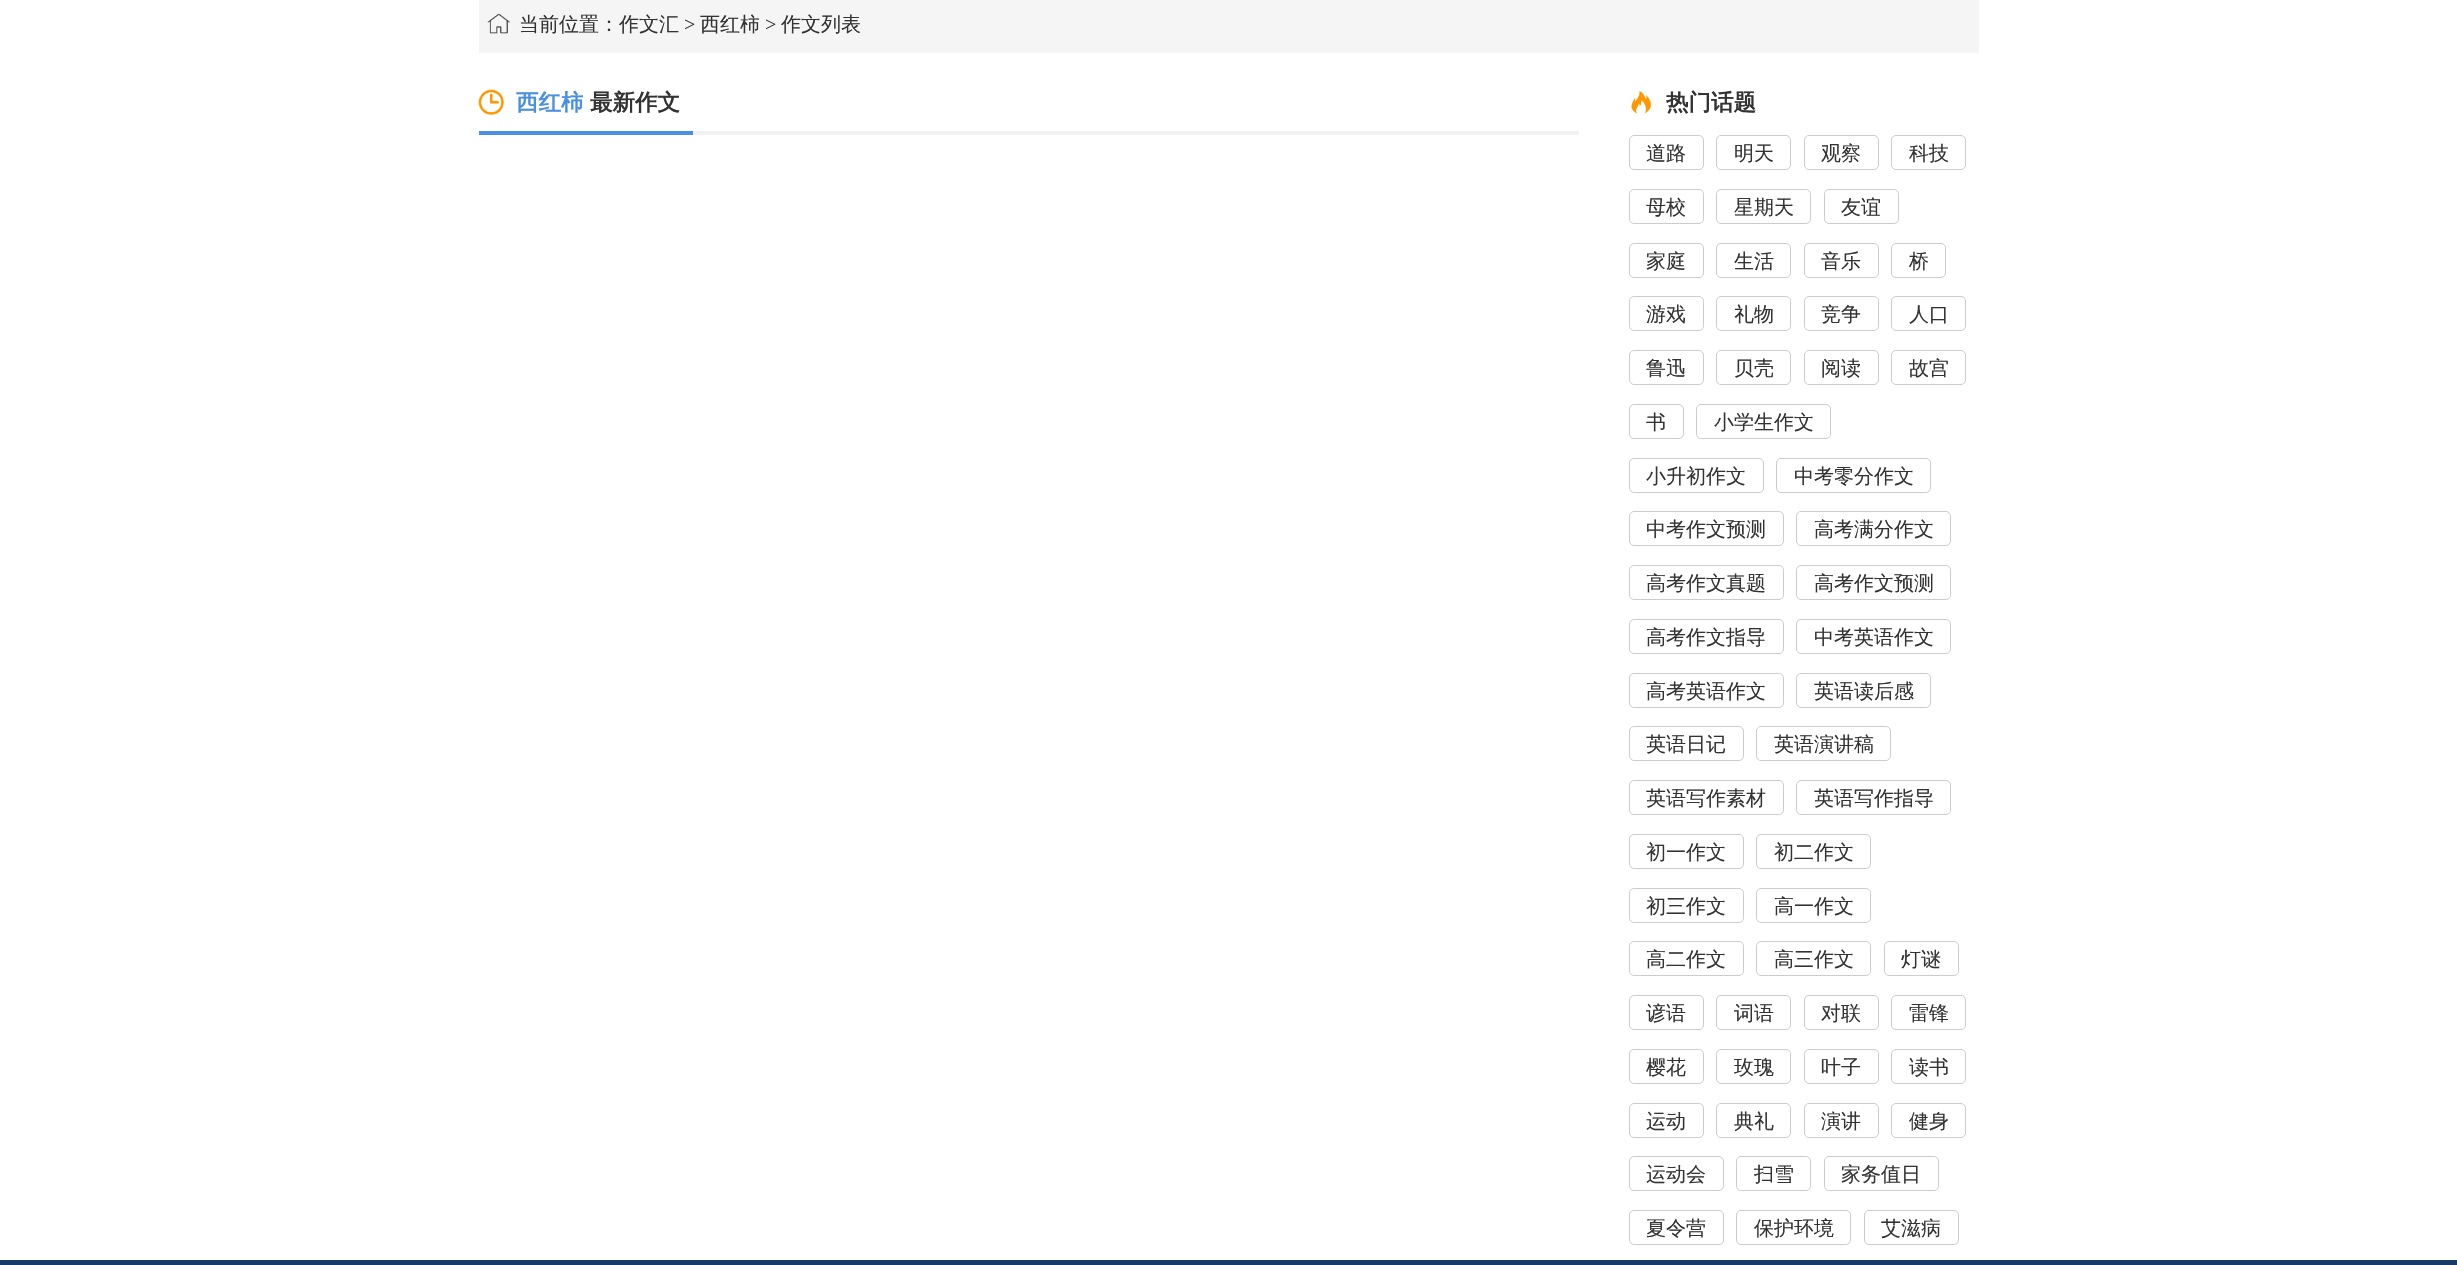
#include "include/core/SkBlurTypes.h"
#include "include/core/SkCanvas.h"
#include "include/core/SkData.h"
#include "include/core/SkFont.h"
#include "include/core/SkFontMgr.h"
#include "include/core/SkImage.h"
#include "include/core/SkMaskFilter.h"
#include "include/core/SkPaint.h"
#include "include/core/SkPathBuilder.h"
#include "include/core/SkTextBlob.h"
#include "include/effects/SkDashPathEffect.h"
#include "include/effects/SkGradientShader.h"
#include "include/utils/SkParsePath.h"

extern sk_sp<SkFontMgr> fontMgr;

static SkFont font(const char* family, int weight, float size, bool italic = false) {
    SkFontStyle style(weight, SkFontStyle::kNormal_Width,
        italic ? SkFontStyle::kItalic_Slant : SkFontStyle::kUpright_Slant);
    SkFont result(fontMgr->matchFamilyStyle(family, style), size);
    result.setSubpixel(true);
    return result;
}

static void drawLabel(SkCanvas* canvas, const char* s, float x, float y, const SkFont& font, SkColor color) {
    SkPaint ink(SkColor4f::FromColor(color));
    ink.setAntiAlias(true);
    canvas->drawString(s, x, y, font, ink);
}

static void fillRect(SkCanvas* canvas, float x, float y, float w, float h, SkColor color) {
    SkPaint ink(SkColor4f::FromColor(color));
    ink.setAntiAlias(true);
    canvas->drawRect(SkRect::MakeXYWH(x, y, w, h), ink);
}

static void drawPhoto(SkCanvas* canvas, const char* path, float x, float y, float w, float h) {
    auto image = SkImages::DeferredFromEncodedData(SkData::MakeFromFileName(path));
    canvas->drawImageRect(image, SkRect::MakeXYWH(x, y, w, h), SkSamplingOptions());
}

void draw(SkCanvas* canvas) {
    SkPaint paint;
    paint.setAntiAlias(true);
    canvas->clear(0xFFFFFFFF);
    fillRect(canvas, 479, 0, 1500, 53, 0xFFF5F5F5);
    drawPhoto(canvas, "assets/img1.png", 487, 13, 23, 21);
    SkFont font1 = font("WenQuanYi Zen Hei", 500, 20);
    drawLabel(canvas, "当前位置：作文汇", 519, 31, font1, 0xFF333333);
    SkFont font2 = font("Liberation Serif", 400, 20);
    drawLabel(canvas, ">", 684, 31, font2, 0xFF333333);
    drawLabel(canvas, "西红柿", 700, 31, font1, 0xFF333333);
    drawLabel(canvas, ">", 765, 31, font2, 0xFF333333);
    drawLabel(canvas, "作文列表", 781, 31, font1, 0xFF333333);
    fillRect(canvas, 693, 131, 886, 4, 0xFFF2F2F2);
    fillRect(canvas, 479, 131, 214, 4, 0xFF4A90E2);
    drawPhoto(canvas, "assets/img2.png", 478, 89, 26, 26);
    SkFont font3 = font("WenQuanYi Zen Hei", 700, 22.5f);
    drawLabel(canvas, "西红柿", 516, 110, font3, 0xFF4A90E2);
    drawLabel(canvas, "最新作文", 590, 110, font3, 0xFF333333);
    drawPhoto(canvas, "assets/img3.png", 1631, 91, 21, 23);
    drawLabel(canvas, "热门话题", 1666, 110, font3, 0xFF333333);
    paint.setStroke(true);
    paint.setStrokeWidth(1);
    paint.setColor(0xFFCCCCCC);
    canvas->drawRoundRect(SkRect::MakeXYWH(1629.5f, 135.5f, 74, 34), 4.5f, 4.5f, paint);
    drawLabel(canvas, "道路", 1646, 160, font1, 0xFF333333);
    canvas->drawRoundRect(SkRect::MakeXYWH(1716.5f, 135.5f, 74, 34), 4.5f, 4.5f, paint);
    drawLabel(canvas, "明天", 1734, 160, font1, 0xFF333333);
    canvas->drawRoundRect(SkRect::MakeXYWH(1804.5f, 135.5f, 74, 34), 4.5f, 4.5f, paint);
    drawLabel(canvas, "观察", 1821, 160, font1, 0xFF333333);
    canvas->drawRoundRect(SkRect::MakeXYWH(1891.5f, 135.5f, 74, 34), 4.5f, 4.5f, paint);
    drawLabel(canvas, "科技", 1909, 160, font1, 0xFF333333);
    canvas->drawRoundRect(SkRect::MakeXYWH(1629.5f, 189.5f, 74, 34), 4.5f, 4.5f, paint);
    drawLabel(canvas, "母校", 1646, 214, font1, 0xFF333333);
    canvas->drawRoundRect(SkRect::MakeXYWH(1716.5f, 189.5f, 94, 34), 4.5f, 4.5f, paint);
    drawLabel(canvas, "星期天", 1734, 214, font1, 0xFF333333);
    canvas->drawRoundRect(SkRect::MakeXYWH(1824.5f, 189.5f, 74, 34), 4.5f, 4.5f, paint);
    drawLabel(canvas, "友谊", 1841, 214, font1, 0xFF333333);
    canvas->drawRoundRect(SkRect::MakeXYWH(1629.5f, 243.5f, 74, 34), 4.5f, 4.5f, paint);
    drawLabel(canvas, "家庭", 1646, 268, font1, 0xFF333333);
    canvas->drawRoundRect(SkRect::MakeXYWH(1716.5f, 243.5f, 74, 34), 4.5f, 4.5f, paint);
    drawLabel(canvas, "生活", 1734, 268, font1, 0xFF333333);
    canvas->drawRoundRect(SkRect::MakeXYWH(1804.5f, 243.5f, 74, 34), 4.5f, 4.5f, paint);
    drawLabel(canvas, "音乐", 1821, 268, font1, 0xFF333333);
    canvas->drawRoundRect(SkRect::MakeXYWH(1891.5f, 243.5f, 54, 34), 4.5f, 4.5f, paint);
    drawLabel(canvas, "桥", 1909, 268, font1, 0xFF333333);
    canvas->drawRoundRect(SkRect::MakeXYWH(1629.5f, 296.5f, 74, 34), 4.5f, 4.5f, paint);
    drawLabel(canvas, "游戏", 1646, 321, font1, 0xFF333333);
    canvas->drawRoundRect(SkRect::MakeXYWH(1716.5f, 296.5f, 74, 34), 4.5f, 4.5f, paint);
    drawLabel(canvas, "礼物", 1734, 321, font1, 0xFF333333);
    canvas->drawRoundRect(SkRect::MakeXYWH(1804.5f, 296.5f, 74, 34), 4.5f, 4.5f, paint);
    drawLabel(canvas, "竞争", 1821, 321, font1, 0xFF333333);
    canvas->drawRoundRect(SkRect::MakeXYWH(1891.5f, 296.5f, 74, 34), 4.5f, 4.5f, paint);
    drawLabel(canvas, "人口", 1909, 321, font1, 0xFF333333);
    canvas->drawRoundRect(SkRect::MakeXYWH(1629.5f, 350.5f, 74, 34), 4.5f, 4.5f, paint);
    drawLabel(canvas, "鲁迅", 1646, 375, font1, 0xFF333333);
    canvas->drawRoundRect(SkRect::MakeXYWH(1716.5f, 350.5f, 74, 34), 4.5f, 4.5f, paint);
    drawLabel(canvas, "贝壳", 1734, 375, font1, 0xFF333333);
    canvas->drawRoundRect(SkRect::MakeXYWH(1804.5f, 350.5f, 74, 34), 4.5f, 4.5f, paint);
    drawLabel(canvas, "阅读", 1821, 375, font1, 0xFF333333);
    canvas->drawRoundRect(SkRect::MakeXYWH(1891.5f, 350.5f, 74, 34), 4.5f, 4.5f, paint);
    drawLabel(canvas, "故宫", 1909, 375, font1, 0xFF333333);
    canvas->drawRoundRect(SkRect::MakeXYWH(1629.5f, 404.5f, 54, 34), 4.5f, 4.5f, paint);
    drawLabel(canvas, "书", 1646, 429, font1, 0xFF333333);
    canvas->drawRoundRect(SkRect::MakeXYWH(1696.5f, 404.5f, 134, 34), 4.5f, 4.5f, paint);
    drawLabel(canvas, "小学生作文", 1714, 429, font1, 0xFF333333);
    canvas->drawRoundRect(SkRect::MakeXYWH(1629.5f, 458.5f, 134, 34), 4.5f, 4.5f, paint);
    drawLabel(canvas, "小升初作文", 1646, 483, font1, 0xFF333333);
    canvas->drawRoundRect(SkRect::MakeXYWH(1776.5f, 458.5f, 154, 34), 4.5f, 4.5f, paint);
    drawLabel(canvas, "中考零分作文", 1794, 483, font1, 0xFF333333);
    canvas->drawRoundRect(SkRect::MakeXYWH(1629.5f, 511.5f, 154, 34), 4.5f, 4.5f, paint);
    drawLabel(canvas, "中考作文预测", 1646, 536, font1, 0xFF333333);
    canvas->drawRoundRect(SkRect::MakeXYWH(1796.5f, 511.5f, 154, 34), 4.5f, 4.5f, paint);
    drawLabel(canvas, "高考满分作文", 1814, 536, font1, 0xFF333333);
    canvas->drawRoundRect(SkRect::MakeXYWH(1629.5f, 565.5f, 154, 34), 4.5f, 4.5f, paint);
    drawLabel(canvas, "高考作文真题", 1646, 590, font1, 0xFF333333);
    canvas->drawRoundRect(SkRect::MakeXYWH(1796.5f, 565.5f, 154, 34), 4.5f, 4.5f, paint);
    drawLabel(canvas, "高考作文预测", 1814, 590, font1, 0xFF333333);
    canvas->drawRoundRect(SkRect::MakeXYWH(1629.5f, 619.5f, 154, 34), 4.5f, 4.5f, paint);
    drawLabel(canvas, "高考作文指导", 1646, 644, font1, 0xFF333333);
    canvas->drawRoundRect(SkRect::MakeXYWH(1796.5f, 619.5f, 154, 34), 4.5f, 4.5f, paint);
    drawLabel(canvas, "中考英语作文", 1814, 644, font1, 0xFF333333);
    canvas->drawRoundRect(SkRect::MakeXYWH(1629.5f, 673.5f, 154, 34), 4.5f, 4.5f, paint);
    drawLabel(canvas, "高考英语作文", 1646, 698, font1, 0xFF333333);
    canvas->drawRoundRect(SkRect::MakeXYWH(1796.5f, 673.5f, 134, 34), 4.5f, 4.5f, paint);
    drawLabel(canvas, "英语读后感", 1814, 698, font1, 0xFF333333);
    canvas->drawRoundRect(SkRect::MakeXYWH(1629.5f, 726.5f, 114, 34), 4.5f, 4.5f, paint);
    drawLabel(canvas, "英语日记", 1646, 751, font1, 0xFF333333);
    canvas->drawRoundRect(SkRect::MakeXYWH(1756.5f, 726.5f, 134, 34), 4.5f, 4.5f, paint);
    drawLabel(canvas, "英语演讲稿", 1774, 751, font1, 0xFF333333);
    canvas->drawRoundRect(SkRect::MakeXYWH(1629.5f, 780.5f, 154, 34), 4.5f, 4.5f, paint);
    drawLabel(canvas, "英语写作素材", 1646, 805, font1, 0xFF333333);
    canvas->drawRoundRect(SkRect::MakeXYWH(1796.5f, 780.5f, 154, 34), 4.5f, 4.5f, paint);
    drawLabel(canvas, "英语写作指导", 1814, 805, font1, 0xFF333333);
    canvas->drawRoundRect(SkRect::MakeXYWH(1629.5f, 834.5f, 114, 34), 4.5f, 4.5f, paint);
    drawLabel(canvas, "初一作文", 1646, 859, font1, 0xFF333333);
    canvas->drawRoundRect(SkRect::MakeXYWH(1756.5f, 834.5f, 114, 34), 4.5f, 4.5f, paint);
    drawLabel(canvas, "初二作文", 1774, 859, font1, 0xFF333333);
    canvas->drawRoundRect(SkRect::MakeXYWH(1629.5f, 888.5f, 114, 34), 4.5f, 4.5f, paint);
    drawLabel(canvas, "初三作文", 1646, 913, font1, 0xFF333333);
    canvas->drawRoundRect(SkRect::MakeXYWH(1756.5f, 888.5f, 114, 34), 4.5f, 4.5f, paint);
    drawLabel(canvas, "高一作文", 1774, 913, font1, 0xFF333333);
    canvas->drawRoundRect(SkRect::MakeXYWH(1629.5f, 941.5f, 114, 34), 4.5f, 4.5f, paint);
    drawLabel(canvas, "高二作文", 1646, 966, font1, 0xFF333333);
    canvas->drawRoundRect(SkRect::MakeXYWH(1756.5f, 941.5f, 114, 34), 4.5f, 4.5f, paint);
    drawLabel(canvas, "高三作文", 1774, 966, font1, 0xFF333333);
    canvas->drawRoundRect(SkRect::MakeXYWH(1884.5f, 941.5f, 74, 34), 4.5f, 4.5f, paint);
    drawLabel(canvas, "灯谜", 1901, 966, font1, 0xFF333333);
    canvas->drawRoundRect(SkRect::MakeXYWH(1629.5f, 995.5f, 74, 34), 4.5f, 4.5f, paint);
    drawLabel(canvas, "谚语", 1646, 1020, font1, 0xFF333333);
    canvas->drawRoundRect(SkRect::MakeXYWH(1716.5f, 995.5f, 74, 34), 4.5f, 4.5f, paint);
    drawLabel(canvas, "词语", 1734, 1020, font1, 0xFF333333);
    canvas->drawRoundRect(SkRect::MakeXYWH(1804.5f, 995.5f, 74, 34), 4.5f, 4.5f, paint);
    drawLabel(canvas, "对联", 1821, 1020, font1, 0xFF333333);
    canvas->drawRoundRect(SkRect::MakeXYWH(1891.5f, 995.5f, 74, 34), 4.5f, 4.5f, paint);
    drawLabel(canvas, "雷锋", 1909, 1020, font1, 0xFF333333);
    canvas->drawRoundRect(SkRect::MakeXYWH(1629.5f, 1049.5f, 74, 34), 4.5f, 4.5f, paint);
    drawLabel(canvas, "樱花", 1646, 1074, font1, 0xFF333333);
    canvas->drawRoundRect(SkRect::MakeXYWH(1716.5f, 1049.5f, 74, 34), 4.5f, 4.5f, paint);
    drawLabel(canvas, "玫瑰", 1734, 1074, font1, 0xFF333333);
    canvas->drawRoundRect(SkRect::MakeXYWH(1804.5f, 1049.5f, 74, 34), 4.5f, 4.5f, paint);
    drawLabel(canvas, "叶子", 1821, 1074, font1, 0xFF333333);
    canvas->drawRoundRect(SkRect::MakeXYWH(1891.5f, 1049.5f, 74, 34), 4.5f, 4.5f, paint);
    drawLabel(canvas, "读书", 1909, 1074, font1, 0xFF333333);
    canvas->drawRoundRect(SkRect::MakeXYWH(1629.5f, 1103.5f, 74, 34), 4.5f, 4.5f, paint);
    drawLabel(canvas, "运动", 1646, 1128, font1, 0xFF333333);
    canvas->drawRoundRect(SkRect::MakeXYWH(1716.5f, 1103.5f, 74, 34), 4.5f, 4.5f, paint);
    drawLabel(canvas, "典礼", 1734, 1128, font1, 0xFF333333);
    canvas->drawRoundRect(SkRect::MakeXYWH(1804.5f, 1103.5f, 74, 34), 4.5f, 4.5f, paint);
    drawLabel(canvas, "演讲", 1821, 1128, font1, 0xFF333333);
    canvas->drawRoundRect(SkRect::MakeXYWH(1891.5f, 1103.5f, 74, 34), 4.5f, 4.5f, paint);
    drawLabel(canvas, "健身", 1909, 1128, font1, 0xFF333333);
    canvas->drawRoundRect(SkRect::MakeXYWH(1629.5f, 1156.5f, 94, 34), 4.5f, 4.5f, paint);
    drawLabel(canvas, "运动会", 1646, 1181, font1, 0xFF333333);
    canvas->drawRoundRect(SkRect::MakeXYWH(1736.5f, 1156.5f, 74, 34), 4.5f, 4.5f, paint);
    drawLabel(canvas, "扫雪", 1754, 1181, font1, 0xFF333333);
    canvas->drawRoundRect(SkRect::MakeXYWH(1824.5f, 1156.5f, 114, 34), 4.5f, 4.5f, paint);
    drawLabel(canvas, "家务值日", 1841, 1181, font1, 0xFF333333);
    canvas->drawRoundRect(SkRect::MakeXYWH(1629.5f, 1210.5f, 94, 34), 4.5f, 4.5f, paint);
    drawLabel(canvas, "夏令营", 1646, 1235, font1, 0xFF333333);
    canvas->drawRoundRect(SkRect::MakeXYWH(1736.5f, 1210.5f, 114, 34), 4.5f, 4.5f, paint);
    drawLabel(canvas, "保护环境", 1754, 1235, font1, 0xFF333333);
    canvas->drawRoundRect(SkRect::MakeXYWH(1864.5f, 1210.5f, 94, 34), 4.5f, 4.5f, paint);
    drawLabel(canvas, "艾滋病", 1881, 1235, font1, 0xFF333333);
    fillRect(canvas, 0, 1260, 2457, 5, 0xFF163A65);
}
